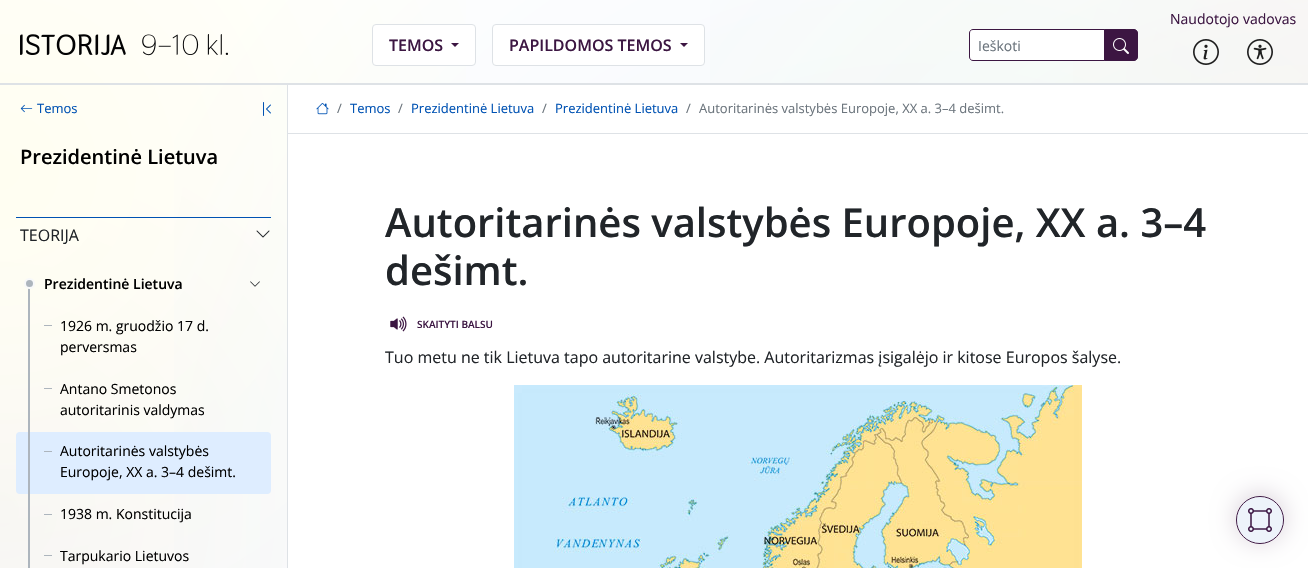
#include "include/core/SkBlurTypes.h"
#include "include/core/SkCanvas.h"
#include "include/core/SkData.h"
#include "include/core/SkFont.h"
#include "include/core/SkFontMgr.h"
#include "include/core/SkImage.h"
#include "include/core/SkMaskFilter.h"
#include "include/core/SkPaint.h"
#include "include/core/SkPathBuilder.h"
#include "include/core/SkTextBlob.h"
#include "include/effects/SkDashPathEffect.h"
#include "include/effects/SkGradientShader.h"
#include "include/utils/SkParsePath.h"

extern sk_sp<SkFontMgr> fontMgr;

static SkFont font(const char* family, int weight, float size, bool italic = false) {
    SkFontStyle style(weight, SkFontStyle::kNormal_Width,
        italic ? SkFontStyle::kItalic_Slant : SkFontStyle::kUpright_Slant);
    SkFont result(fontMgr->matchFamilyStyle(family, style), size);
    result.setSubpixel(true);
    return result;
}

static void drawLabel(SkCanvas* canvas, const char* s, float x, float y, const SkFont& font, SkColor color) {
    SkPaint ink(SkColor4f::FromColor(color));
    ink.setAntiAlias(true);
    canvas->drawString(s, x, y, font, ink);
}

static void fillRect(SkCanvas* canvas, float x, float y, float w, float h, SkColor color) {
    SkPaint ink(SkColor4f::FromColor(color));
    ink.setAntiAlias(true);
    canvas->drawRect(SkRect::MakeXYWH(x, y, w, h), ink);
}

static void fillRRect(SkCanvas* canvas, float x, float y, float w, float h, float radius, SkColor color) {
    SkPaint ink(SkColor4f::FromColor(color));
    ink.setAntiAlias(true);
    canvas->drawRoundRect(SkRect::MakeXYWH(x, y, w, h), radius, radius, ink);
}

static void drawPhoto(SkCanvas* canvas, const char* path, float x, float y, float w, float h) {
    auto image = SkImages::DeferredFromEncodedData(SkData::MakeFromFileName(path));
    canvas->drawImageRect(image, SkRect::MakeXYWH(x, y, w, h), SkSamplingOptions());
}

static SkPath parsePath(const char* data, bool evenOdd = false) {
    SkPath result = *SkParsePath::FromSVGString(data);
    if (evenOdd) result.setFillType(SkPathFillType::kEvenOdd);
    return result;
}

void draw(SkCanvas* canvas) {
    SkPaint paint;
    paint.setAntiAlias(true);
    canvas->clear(0xFFFFFFFF);
    {
        const SkColor colors[] = {0xFFF4F2F4, 0xFFFFFFFF};
        const float stops[] = {0, 0.3f};
        paint.setShader(SkGradientShader::MakeRadial({0, 511}, 1404, colors, stops, 2, SkTileMode::kClamp));
        paint.setAlpha(255);
    }
    canvas->drawRect(SkRect::MakeXYWH(0, 172, 342, 396), paint);
    {
        const SkColor colors[] = {0xFFFFF2F7, 0x00FFF2F7};
        const float stops[] = {0, 0.2f};
        paint.setShader(SkGradientShader::MakeRadial({1308, 85}, 1394, colors, stops, 2, SkTileMode::kClamp));
        paint.setAlpha(255);
    }
    canvas->drawRect(SkRect::MakeXYWH(1073, 0, 235, 83), paint);
    {
        const SkColor colors[] = {0xFFFFFEF1, 0x00FFFEF1};
        const float stops[] = {0, 0.4f};
        paint.setShader(SkGradientShader::MakeRadial({0, 170}, 1367, colors, stops, 2, SkTileMode::kClamp));
        paint.setAlpha(255);
    }
    canvas->drawRect(SkRect::MakeXYWH(0, 0, 466, 568), paint);
    {
        const SkColor colors[] = {0xFFF0F5FB, 0x00F0F5FB};
        const float stops[] = {0, 0.82f};
        paint.setShader(SkGradientShader::MakeRadial({916, 545}, 1066, colors, stops, 2, SkTileMode::kClamp));
        paint.setAlpha(255);
    }
    canvas->drawRect(SkRect::MakeXYWH(174, 0, 1134, 568), paint);
    {
        const SkColor colors[] = {0xFFF3F9F0, 0x00F3F9F0};
        const float stops[] = {0, 0.6f};
        paint.setShader(SkGradientShader::MakeRadial({1308, 483}, 1394, colors, stops, 2, SkTileMode::kClamp));
        paint.setAlpha(255);
    }
    canvas->drawRect(SkRect::MakeXYWH(710, 0, 598, 83), paint);
    fillRect(canvas, 0, 83, 1308, 2, 0xFFDEE2E6);
    drawPhoto(canvas, "assets/img1.png", 20, 34, 208, 22);
    SkFont font1 = font("Open Sans", 400, 14);
    drawLabel(canvas, "Naudotojo vadovas", 1170, 24, font1, 0xFF3C1642);
    drawPhoto(canvas, "assets/img2.png", 1193, 39, 26, 26);
    drawPhoto(canvas, "assets/img3.png", 1247, 39, 26, 26);
    paint.setShader(nullptr);
    paint.setColor(0xFFFFFFFF);
    canvas->drawRoundRect(SkRect::MakeXYWH(372.5f, 24.5f, 103, 41), 3.5f, 3.5f, paint);
    paint.setStroke(true);
    paint.setStrokeWidth(1);
    paint.setColor(0xFFDEE2E6);
    canvas->drawRoundRect(SkRect::MakeXYWH(372.5f, 24.5f, 103, 41), 3.5f, 3.5f, paint);
    SkFont font2 = font("Open Sans", 600, 16);
    drawLabel(canvas, "TEMOS", 389, 51, font2, 0xFF3C1642);
    paint.setStroke(false);
    paint.setColor(0xFF3C1642);
    canvas->drawPath(parsePath("M451 43H459L455 47Z"), paint);
    paint.setColor(0xFFFFFFFF);
    canvas->drawRoundRect(SkRect::MakeXYWH(492.5f, 24.5f, 212, 41), 3.5f, 3.5f, paint);
    paint.setStroke(true);
    paint.setColor(0xFFDEE2E6);
    canvas->drawRoundRect(SkRect::MakeXYWH(492.5f, 24.5f, 212, 41), 3.5f, 3.5f, paint);
    drawLabel(canvas, "PAPILDOMOS TEMOS", 509, 51, font2, 0xFF3C1642);
    paint.setStroke(false);
    paint.setColor(0xFF3C1642);
    canvas->drawPath(parsePath("M680 43H688L684 47Z"), paint);
    paint.setColor(0xFFFFFFFF);
    canvas->drawPath(parsePath("M973 29.5H1104.5V60.5H973C971 60.5 969.5 59 969.5 57V33C969.5 31 971 29.5 973 29.5Z"), paint);
    paint.setStroke(true);
    paint.setColor(0xFF3C1642);
    canvas->drawPath(parsePath("M973 29.5H1104.5V60.5H973C971 60.5 969.5 59 969.5 57V33C969.5 31 971 29.5 973 29.5Z"), paint);
    drawLabel(canvas, "Ieškoti", 978, 51, font1, 0xFF6C757D);
    paint.setStroke(false);
    canvas->drawPath(parsePath("M1104.5 29.5H1134C1136 29.5 1137.5 31 1137.5 33V57C1137.5 59 1136 60.5 1134 60.5H1104.5Z"), paint);
    paint.setStroke(true);
    canvas->drawPath(parsePath("M1104.5 29.5H1134C1136 29.5 1137.5 31 1137.5 33V57C1137.5 59 1136 60.5 1134 60.5H1104.5Z"), paint);
    drawPhoto(canvas, "assets/img4.png", 1113, 38, 16, 16);
    fillRect(canvas, 287, 85, 1, 483, 0xFFDEE2E6);
    drawPhoto(canvas, "assets/img5.png", 20, 104, 13, 9);
    SkFont font3 = font("Open Sans", 400, 13);
    drawLabel(canvas, "Temos", 37, 113, font3, 0xFF0052B3);
    drawPhoto(canvas, "assets/img6.png", 263, 102, 8, 14);
    SkFont font4 = font("Open Sans", 600, 20);
    drawLabel(canvas, "Prezidentinė Lietuva", 20, 164, font4, 0xFF000000);
    fillRect(canvas, 16, 217, 255, 1, 0xFF0052B3);
    SkFont font5 = font("Open Sans", 400, 16);
    drawLabel(canvas, "TEORIJA", 20, 241, font5, 0xFF212529);
    drawPhoto(canvas, "assets/img7.png", 256, 230, 14, 8);
    fillRRect(canvas, 16, 432, 255, 62, 4, 0xFFDEEDFF);
    fillRect(canvas, 28, 288, 2, 280, 0xFFADB5BD);
    paint.setStroke(false);
    paint.setColor(0xFFADB5BD);
    canvas->drawCircle(29.5f, 283.5f, 4.5f, paint);
    paint.setStroke(true);
    paint.setStrokeWidth(2);
    paint.setColor(0xFFF8F9FA);
    canvas->drawCircle(29.5f, 283.5f, 4.5f, paint);
    SkFont font6 = font("Open Sans", 600, 14);
    drawLabel(canvas, "Prezidentinė Lietuva", 44, 289, font6, 0xFF000000);
    drawPhoto(canvas, "assets/img8.png", 250, 281, 10, 6);
    fillRect(canvas, 44, 325, 8, 1, 0xFFADB5BD);
    drawLabel(canvas, "1926 m. gruodžio 17 d.", 60, 331, font1, 0xFF000000);
    drawLabel(canvas, "perversmas", 60, 352, font1, 0xFF000000);
    fillRect(canvas, 44, 388, 8, 1, 0xFFADB5BD);
    drawLabel(canvas, "Antano Smetonos", 60, 394, font1, 0xFF000000);
    drawLabel(canvas, "autoritarinis valdymas", 60, 415, font1, 0xFF000000);
    fillRect(canvas, 44, 451, 8, 1, 0xFFADB5BD);
    drawLabel(canvas, "Autoritarinės valstybės", 60, 456, font1, 0xFF000000);
    drawLabel(canvas, "Europoje, XX a. 3–4 dešimt.", 60, 477, font1, 0xFF000000);
    fillRect(canvas, 44, 514, 8, 1, 0xFFADB5BD);
    drawLabel(canvas, "1938 m. Konstitucija", 60, 519, font1, 0xFF000000);
    fillRect(canvas, 44, 555, 8, 1, 0xFFADB5BD);
    drawLabel(canvas, "Tarpukario Lietuvos", 60, 561, font1, 0xFF000000);
    fillRect(canvas, 288, 85, 1020, 483, 0xFFFFFFFF);
    fillRect(canvas, 288, 133, 1020, 1, 0xFFDEE2E6);
    drawPhoto(canvas, "assets/img9.png", 316, 103, 13, 12);
    drawLabel(canvas, "/", 337, 113, font3, 0xFF6C757D);
    drawLabel(canvas, "Temos", 350, 113, font3, 0xFF0052B3);
    drawLabel(canvas, "/", 398, 113, font3, 0xFF6C757D);
    drawLabel(canvas, "Prezidentinė Lietuva", 411, 113, font3, 0xFF0052B3);
    drawLabel(canvas, "/", 542, 113, font3, 0xFF6C757D);
    drawLabel(canvas, "Prezidentinė Lietuva", 555, 113, font3, 0xFF0052B3);
    drawLabel(canvas, "/", 686, 113, font3, 0xFF6C757D);
    drawLabel(canvas, "Autoritarinės valstybės Europoje, XX a. 3–4 dešimt.", 699, 113, font3, 0xFF6C757D);
    SkFont font7 = font("Open Sans", 600, 40);
    drawLabel(canvas, "Autoritarinės valstybės Europoje, XX a. 3–4", 385, 237, font7, 0xFF212529);
    drawLabel(canvas, "dešimt.", 385, 285, font7, 0xFF212529);
    drawPhoto(canvas, "assets/img10.png", 390, 316, 17, 16);
    SkFont font8 = font("Open Sans", 600, 10);
    drawLabel(canvas, "SKAITYTI BALSU", 417, 328, font8, 0xFF3C1642);
    drawLabel(canvas, "Tuo metu ne tik Lietuva tapo autoritarine valstybe. Autoritarizmas įsigalėjo ir kitose Europos šalyse.", 385, 363, font5, 0xFF212529);
    drawPhoto(canvas, "assets/img11.png", 514, 385, 568, 183);
    paint.setStroke(false);
    paint.setColor(0xFFD8D0D9);
    paint.setMaskFilter(SkMaskFilter::MakeBlur(kNormal_SkBlurStyle, 12));
    canvas->drawRoundRect(SkRect::MakeXYWH(1236, 494, 48, 48), 24, 24, paint);
    paint.setMaskFilter(nullptr);
    paint.setColor(0xFFFFFFFF);
    canvas->drawCircle(1260, 520, 23.5f, paint);
    paint.setStroke(true);
    paint.setStrokeWidth(1);
    paint.setColor(0xFF3C1642);
    canvas->drawCircle(1260, 520, 23.5f, paint);
    paint.setStroke(false);
    paint.setColor(0x59CCDCF0);
    canvas->drawCircle(1260, 520, 23, paint);
    drawPhoto(canvas, "assets/img12.png", 1248, 508, 24, 24);
}
